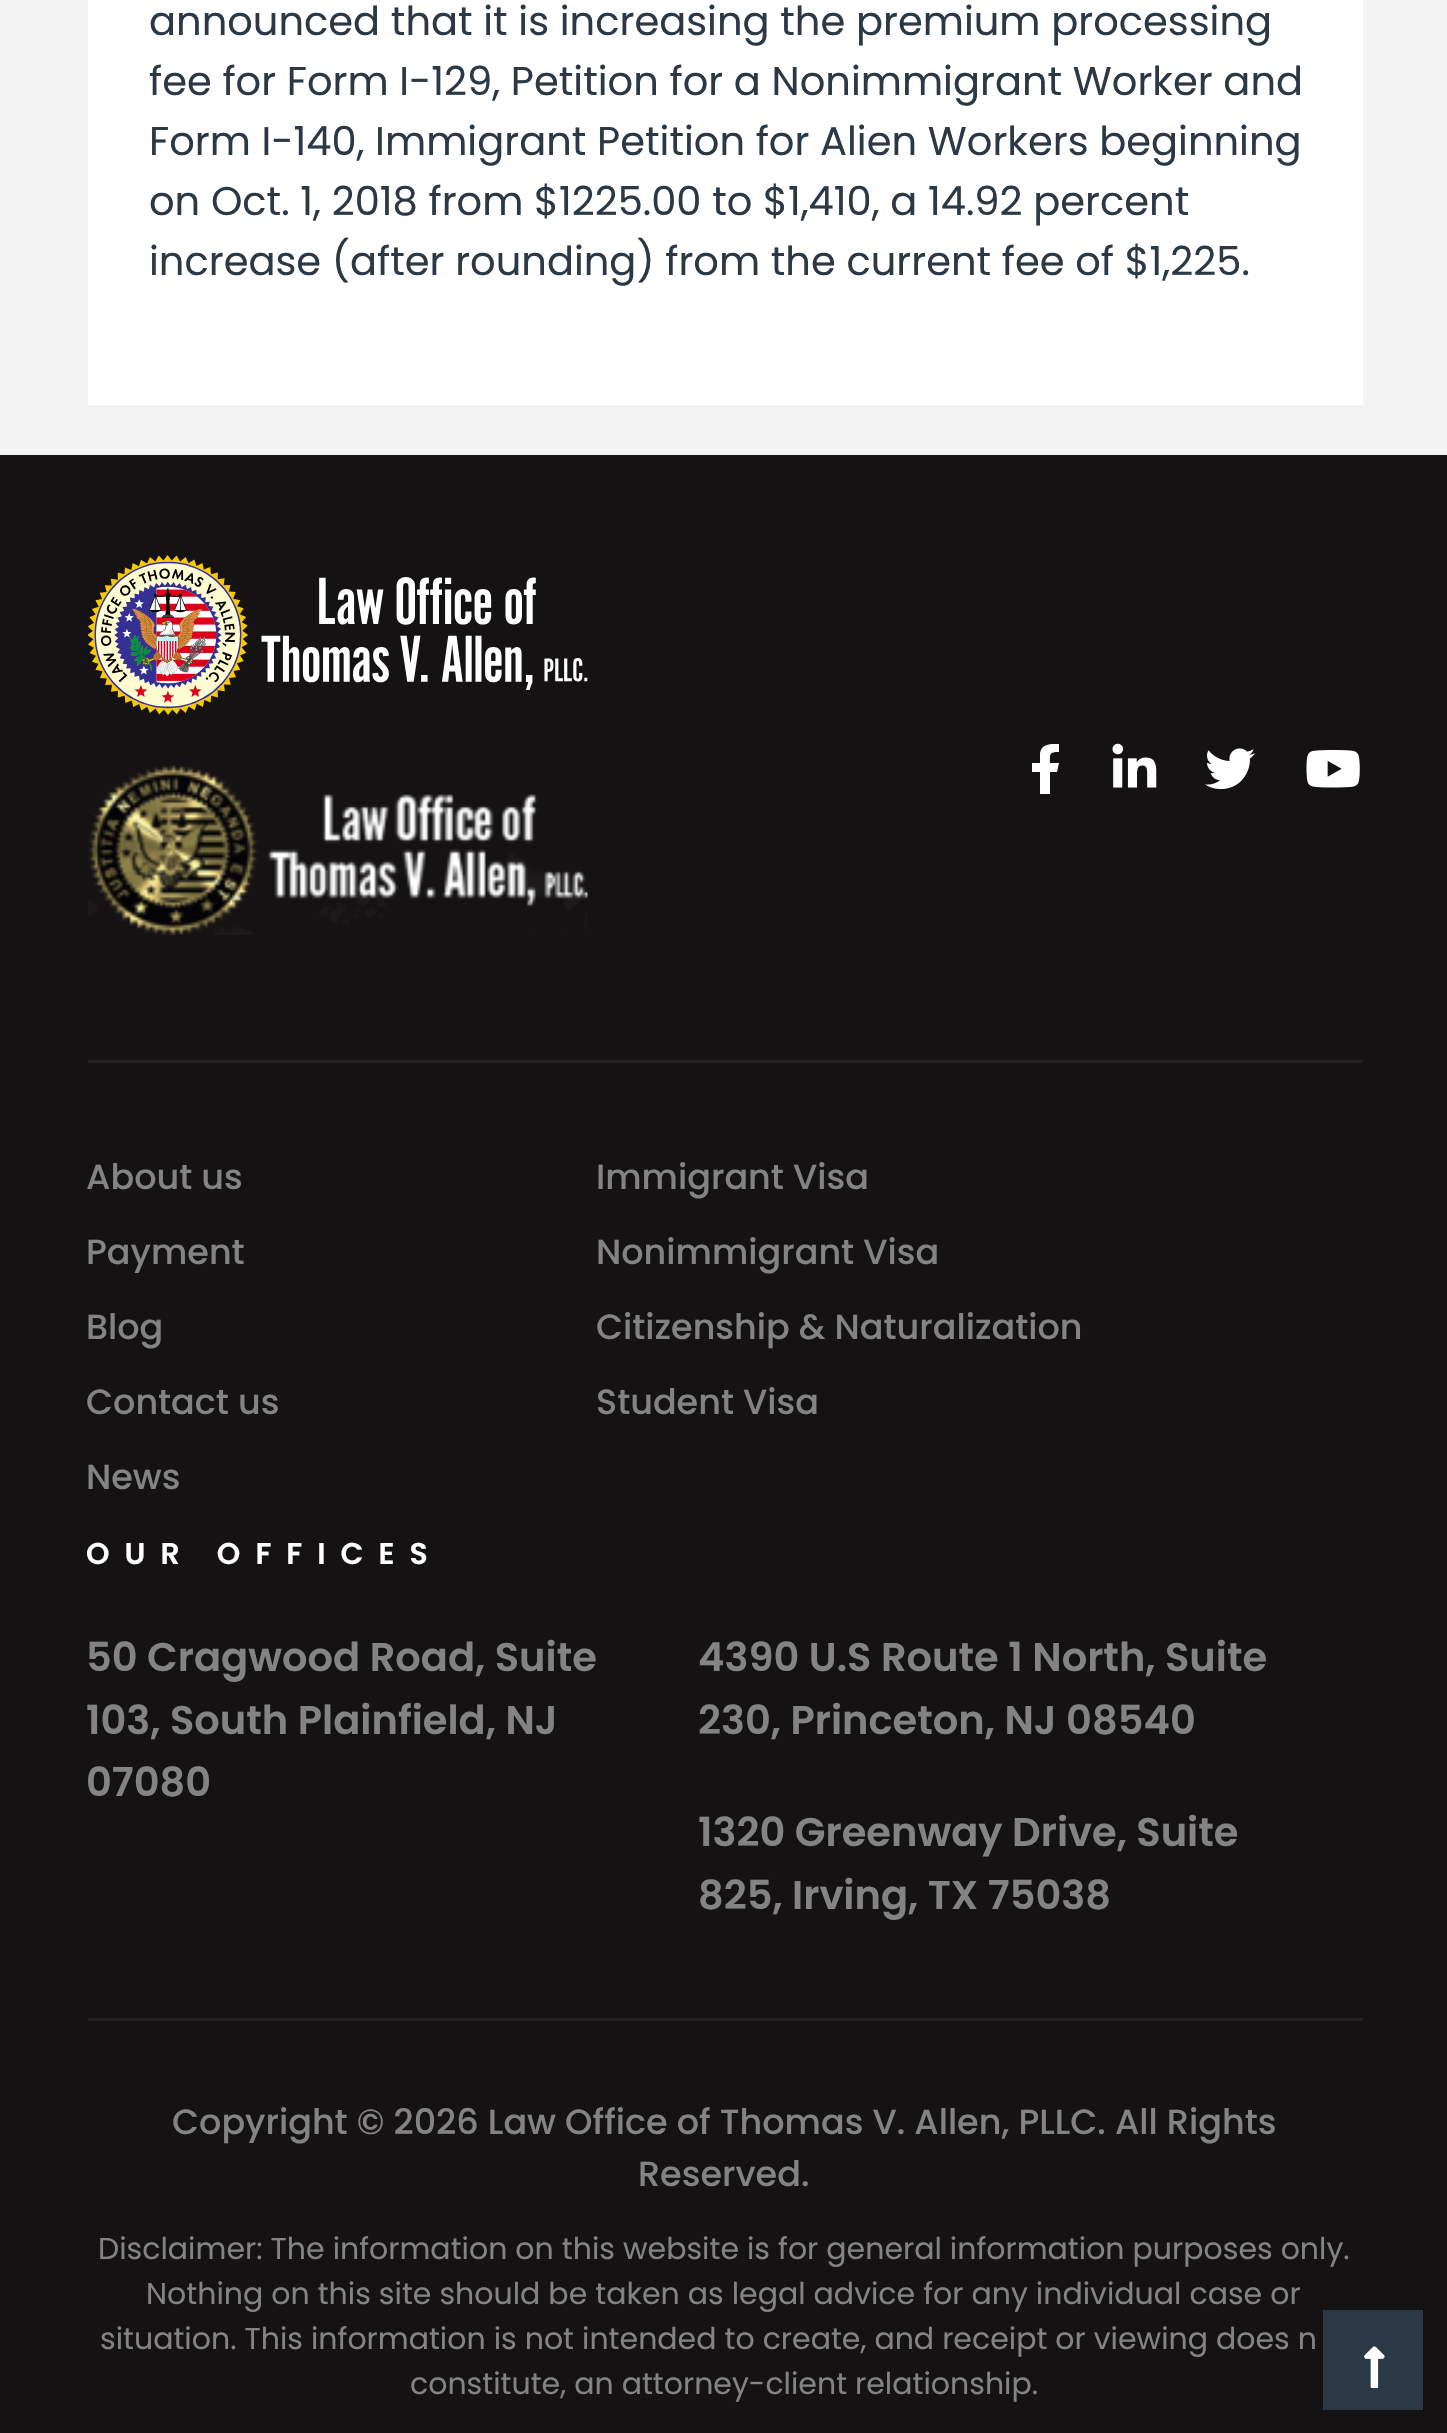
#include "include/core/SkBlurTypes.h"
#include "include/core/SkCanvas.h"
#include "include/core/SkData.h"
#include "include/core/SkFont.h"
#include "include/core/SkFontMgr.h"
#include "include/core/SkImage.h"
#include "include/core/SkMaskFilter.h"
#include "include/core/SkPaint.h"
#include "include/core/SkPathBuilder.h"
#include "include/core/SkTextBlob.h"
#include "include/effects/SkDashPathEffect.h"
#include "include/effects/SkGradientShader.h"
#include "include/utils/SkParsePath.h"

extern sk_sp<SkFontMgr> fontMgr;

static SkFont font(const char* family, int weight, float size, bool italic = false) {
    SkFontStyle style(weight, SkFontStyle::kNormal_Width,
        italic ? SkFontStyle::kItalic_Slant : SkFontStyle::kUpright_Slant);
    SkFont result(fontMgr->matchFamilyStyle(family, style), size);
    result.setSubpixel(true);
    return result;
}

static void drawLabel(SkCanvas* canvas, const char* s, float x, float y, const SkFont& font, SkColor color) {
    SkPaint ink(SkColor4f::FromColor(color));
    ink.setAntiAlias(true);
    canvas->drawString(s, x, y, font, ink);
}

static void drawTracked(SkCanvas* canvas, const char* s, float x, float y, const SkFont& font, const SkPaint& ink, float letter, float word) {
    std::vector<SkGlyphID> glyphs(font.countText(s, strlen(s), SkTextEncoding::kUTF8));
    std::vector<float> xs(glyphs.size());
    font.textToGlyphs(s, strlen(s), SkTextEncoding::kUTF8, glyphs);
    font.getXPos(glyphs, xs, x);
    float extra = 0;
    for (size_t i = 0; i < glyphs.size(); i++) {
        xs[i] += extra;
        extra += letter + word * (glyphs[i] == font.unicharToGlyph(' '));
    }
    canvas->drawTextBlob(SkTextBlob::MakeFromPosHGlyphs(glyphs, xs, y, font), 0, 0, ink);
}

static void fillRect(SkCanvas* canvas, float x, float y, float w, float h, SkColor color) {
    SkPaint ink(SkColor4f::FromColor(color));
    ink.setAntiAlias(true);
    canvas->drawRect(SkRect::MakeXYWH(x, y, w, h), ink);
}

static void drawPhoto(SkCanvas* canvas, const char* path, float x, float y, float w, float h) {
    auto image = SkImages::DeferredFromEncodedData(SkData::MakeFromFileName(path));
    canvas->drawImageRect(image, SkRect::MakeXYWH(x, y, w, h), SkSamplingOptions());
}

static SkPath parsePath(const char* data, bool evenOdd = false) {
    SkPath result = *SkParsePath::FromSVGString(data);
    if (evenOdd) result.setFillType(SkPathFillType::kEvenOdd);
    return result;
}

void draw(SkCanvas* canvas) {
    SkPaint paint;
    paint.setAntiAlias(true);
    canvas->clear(0xFFF3F3F3);
    fillRect(canvas, 88, 0, 1275, 405, 0xFFFFFFFF);
    SkFont font1 = font("Poppins", 400, 40);
    drawLabel(canvas, "announced that it is increasing the premium processing", 149, 35, font1, 0xFF2B3946);
    drawLabel(canvas, "fee for Form I-129, Petition for a Nonimmigrant Worker and", 149, 95, font1, 0xFF2B3946);
    drawLabel(canvas, "Form I-140, Immigrant Petition for Alien Workers beginning", 149, 155, font1, 0xFF2B3946);
    drawLabel(canvas, "on Oct. 1, 2018 from $1225.00 to $1,410, a 14.92 percent", 149, 215, font1, 0xFF2B3946);
    drawLabel(canvas, "increase (after rounding) from the current fee of $1,225.", 149, 275, font1, 0xFF2B3946);
    fillRect(canvas, 0, 455, 1447, 1978, 0xFF151214);
    fillRect(canvas, 88, 1060, 1275, 3, 0xFF232022);
    drawPhoto(canvas, "assets/img1.png", 88, 555, 500, 160);
    drawPhoto(canvas, "assets/img2.png", 88, 765, 500, 170);
    paint.setColor(0xFFFFFFFF);
    canvas->drawPath(parsePath("M1057 772H1050V794H1040V772H1032V763H1040V753C1042 743 1051 744 1059 744V752C1049 752 1050 754 1050 763H1059Z"), paint);
    drawPhoto(canvas, "assets/img3.png", 1112, 743, 45, 45);
    drawPhoto(canvas, "assets/img4.png", 1205, 748, 50, 42);
    drawPhoto(canvas, "assets/img5.png", 1306, 750, 54, 38);
    fillRect(canvas, 88, 2018, 1275, 3, 0xFF232022);
    SkFont font2 = font("Poppins", 500, 35);
    drawLabel(canvas, "About us", 86, 1189, font2, 0xFF848384);
    drawLabel(canvas, "Immigrant Visa", 596, 1189, font2, 0xFF848384);
    drawLabel(canvas, "Payment", 86, 1264, font2, 0xFF848384);
    drawLabel(canvas, "Nonimmigrant Visa", 596, 1264, font2, 0xFF848384);
    drawLabel(canvas, "Blog", 86, 1339, font2, 0xFF848384);
    drawLabel(canvas, "Citizenship & Naturalization", 596, 1339, font2, 0xFF848384);
    drawLabel(canvas, "Contact us", 86, 1414, font2, 0xFF848384);
    drawLabel(canvas, "Student Visa", 596, 1414, font2, 0xFF848384);
    drawLabel(canvas, "News", 86, 1489, font2, 0xFF848384);
    SkFont font3 = font("Poppins", 600, 30);
    drawTracked(canvas, "OUR OFFICES", 86, 1564, font3, paint, 15, 0);
    SkFont font4 = font("Poppins", 600, 40);
    drawLabel(canvas, "50 Cragwood Road, Suite", 86, 1671, font4, 0xFF848384);
    drawLabel(canvas, "103, South Plainfield, NJ", 86, 1734, font4, 0xFF848384);
    drawLabel(canvas, "07080", 86, 1796, font4, 0xFF848384);
    drawLabel(canvas, "4390 U.S Route 1 North, Suite", 698, 1671, font4, 0xFF848384);
    drawLabel(canvas, "230, Princeton, NJ 08540", 698, 1734, font4, 0xFF848384);
    drawLabel(canvas, "1320 Greenway Drive, Suite", 698, 1846, font4, 0xFF848384);
    drawLabel(canvas, "825, Irving, TX 75038", 698, 1909, font4, 0xFF848384);
    drawLabel(canvas, "Copyright © 2026 Law Office of Thomas V. Allen, PLLC. All Rights", 172, 2134, font2, 0xFF848384);
    drawLabel(canvas, "Reserved.", 638, 2186, font2, 0xFF848384);
    SkFont font5 = font("Poppins", 400, 30);
    drawLabel(canvas, "Disclaimer: The information on this website is for general information purposes only.", 98, 2259, font5, 0xFF848384);
    drawLabel(canvas, "Nothing on this site should be taken as legal advice for any individual case or", 146, 2304, font5, 0xFF848384);
    drawLabel(canvas, "situation. This information is not intended to create, and receipt or viewing does n", 100, 2349, font5, 0xFF848384);
    drawLabel(canvas, "constitute, an attorney-client relationship.", 410, 2394, font5, 0xFF848384);
    fillRect(canvas, 1323, 2310, 100, 100, 0xFF2B3946);
    drawPhoto(canvas, "assets/img6.png", 1364, 2346, 21, 42);
}
